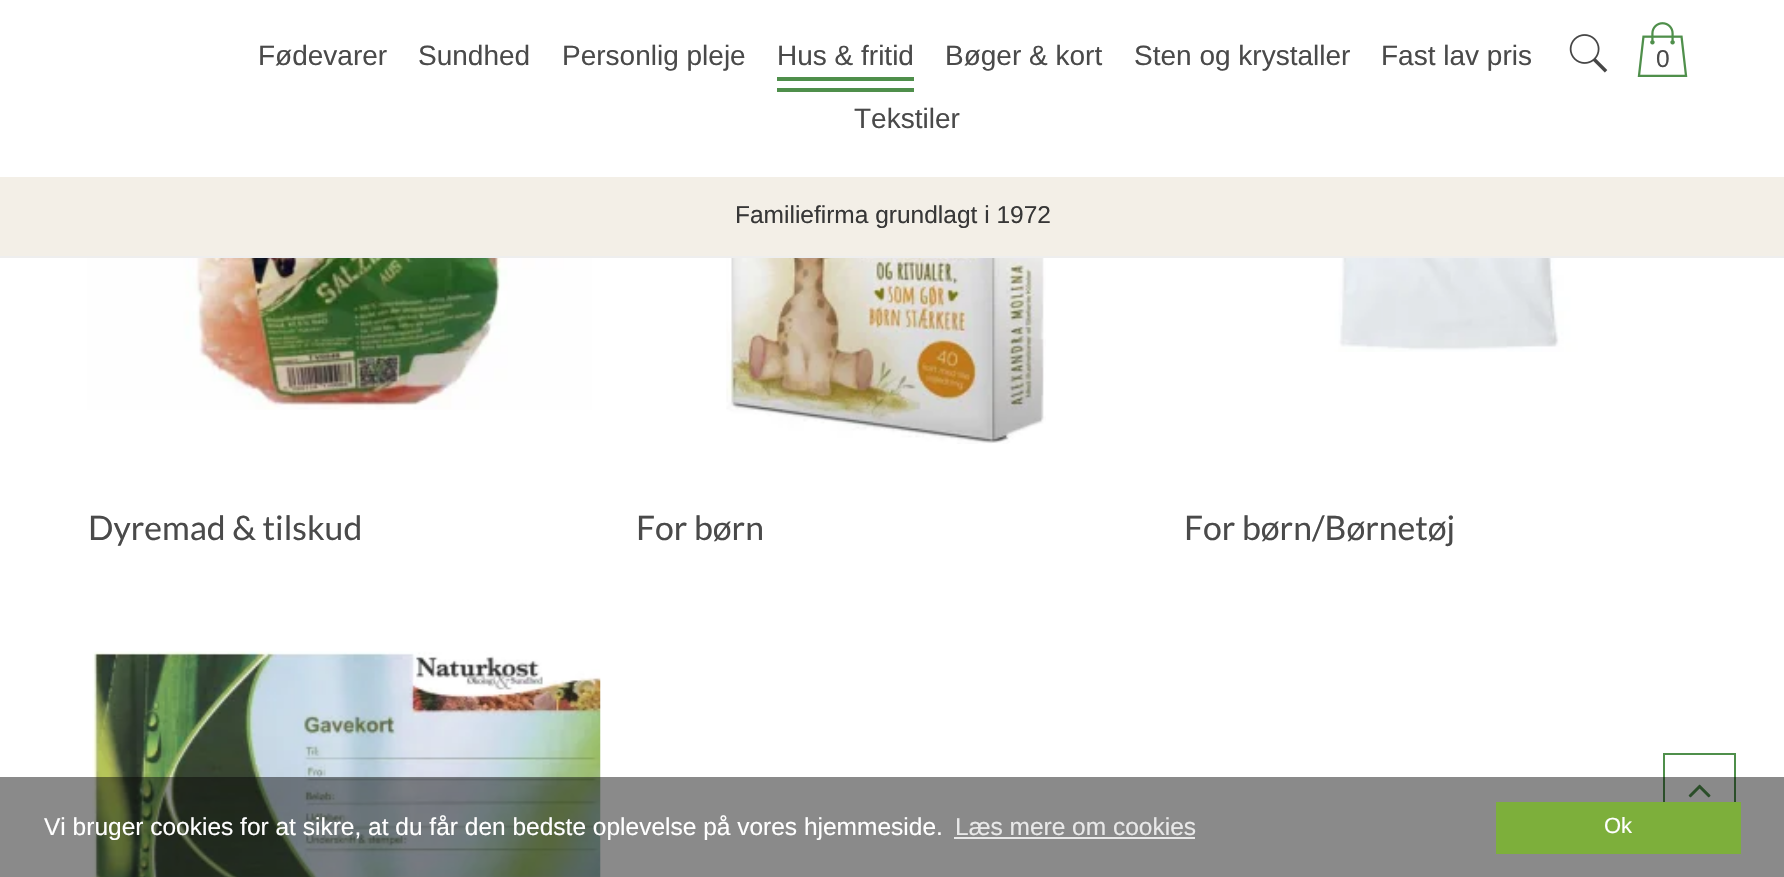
#include "include/core/SkBlurTypes.h"
#include "include/core/SkCanvas.h"
#include "include/core/SkData.h"
#include "include/core/SkFont.h"
#include "include/core/SkFontMgr.h"
#include "include/core/SkImage.h"
#include "include/core/SkMaskFilter.h"
#include "include/core/SkPaint.h"
#include "include/core/SkPathBuilder.h"
#include "include/core/SkTextBlob.h"
#include "include/effects/SkDashPathEffect.h"
#include "include/effects/SkGradientShader.h"
#include "include/utils/SkParsePath.h"

extern sk_sp<SkFontMgr> fontMgr;

static SkFont font(const char* family, int weight, float size, bool italic = false) {
    SkFontStyle style(weight, SkFontStyle::kNormal_Width,
        italic ? SkFontStyle::kItalic_Slant : SkFontStyle::kUpright_Slant);
    SkFont result(fontMgr->matchFamilyStyle(family, style), size);
    result.setSubpixel(true);
    return result;
}

static void drawLabel(SkCanvas* canvas, const char* s, float x, float y, const SkFont& font, SkColor color) {
    SkPaint ink(SkColor4f::FromColor(color));
    ink.setAntiAlias(true);
    canvas->drawString(s, x, y, font, ink);
}

static void fillRect(SkCanvas* canvas, float x, float y, float w, float h, SkColor color) {
    SkPaint ink(SkColor4f::FromColor(color));
    ink.setAntiAlias(true);
    canvas->drawRect(SkRect::MakeXYWH(x, y, w, h), ink);
}

static void drawPhoto(SkCanvas* canvas, const char* path, float x, float y, float w, float h) {
    auto image = SkImages::DeferredFromEncodedData(SkData::MakeFromFileName(path));
    canvas->drawImageRect(image, SkRect::MakeXYWH(x, y, w, h), SkSamplingOptions());
}

void draw(SkCanvas* canvas) {
    SkPaint paint;
    paint.setAntiAlias(true);
    canvas->clear(0xFFFFFFFF);
    fillRect(canvas, 0, 256, 1784, 2, 0xFFEEEEEE);
    SkFont font1 = font("Liberation Sans", 400, 28);
    drawLabel(canvas, "Fødevarer", 258, 65, font1, 0xFF4A4A4A);
    drawLabel(canvas, "Sundhed", 418, 65, font1, 0xFF4A4A4A);
    drawLabel(canvas, "Personlig pleje", 562, 65, font1, 0xFF4A4A4A);
    drawLabel(canvas, "Hus & fritid", 777, 65, font1, 0xFF4A4A4A);
    fillRect(canvas, 777, 88, 137, 4, 0xFF4F8F4B);
    fillRect(canvas, 777, 77, 137, 4, 0xFF4F8F4B);
    drawLabel(canvas, "Bøger & kort", 945, 65, font1, 0xFF4A4A4A);
    drawLabel(canvas, "Sten og krystaller", 1134, 65, font1, 0xFF4A4A4A);
    drawLabel(canvas, "Fast lav pris", 1381, 65, font1, 0xFF4A4A4A);
    drawLabel(canvas, "Tekstiler", 854, 128, font1, 0xFF4A4A4A);
    drawPhoto(canvas, "assets/img1.png", 1569, 34, 39, 39);
    drawPhoto(canvas, "assets/img2.png", 1637, 22, 51, 55);
    SkFont font2 = font("Liberation Sans", 400, 24.5f);
    drawLabel(canvas, "0", 1656, 67, font2, 0xFF4A4A4A);
    fillRect(canvas, 0, 177, 1784, 79, 0xFFF3EFE7);
    drawLabel(canvas, "Familiefirma grundlagt i 1972", 735, 223, font2, 0xFF373737);
    drawPhoto(canvas, "assets/img3.png", 87, 258, 505, 152);
    SkFont font3 = font("Lato", 400, 33.75f);
    drawLabel(canvas, "Dyremad & tilskud", 88, 540, font3, 0xFF4A4A4A);
    drawPhoto(canvas, "assets/img4.png", 726, 258, 320, 186);
    drawLabel(canvas, "For børn", 636, 540, font3, 0xFF4A4A4A);
    drawPhoto(canvas, "assets/img5.png", 1282, 258, 328, 94);
    drawLabel(canvas, "For børn/Børnetøj", 1184, 540, font3, 0xFF4A4A4A);
    drawPhoto(canvas, "assets/img6.png", 92, 651, 509, 226);
    paint.setStroke(true);
    paint.setStrokeWidth(2);
    paint.setColor(0xFF4F8F4B);
    canvas->drawRect(SkRect::MakeXYWH(1664, 754, 71, 75), paint);
    drawPhoto(canvas, "assets/img7.png", 1688, 784, 23, 14);
    fillRect(canvas, 0, 777, 1784, 100, 0x75000000);
    drawLabel(canvas, "Vi bruger cookies for at sikre, at du får den bedste oplevelse på vores hjemmeside.", 44, 835, font2, 0xFFFFFFFF);
    drawLabel(canvas, "Læs mere om cookies", 955, 835, font2, 0xFFE8E8E8);
    fillRect(canvas, 954, 837, 241, 2, 0xFFE8E8E8);
    fillRect(canvas, 1496, 802, 245, 52, 0xFF7DAF3B);
    SkFont font4 = font("Liberation Sans", 400, 22);
    drawLabel(canvas, "Ok", 1604, 833, font4, 0xFFFFFFFF);
}
